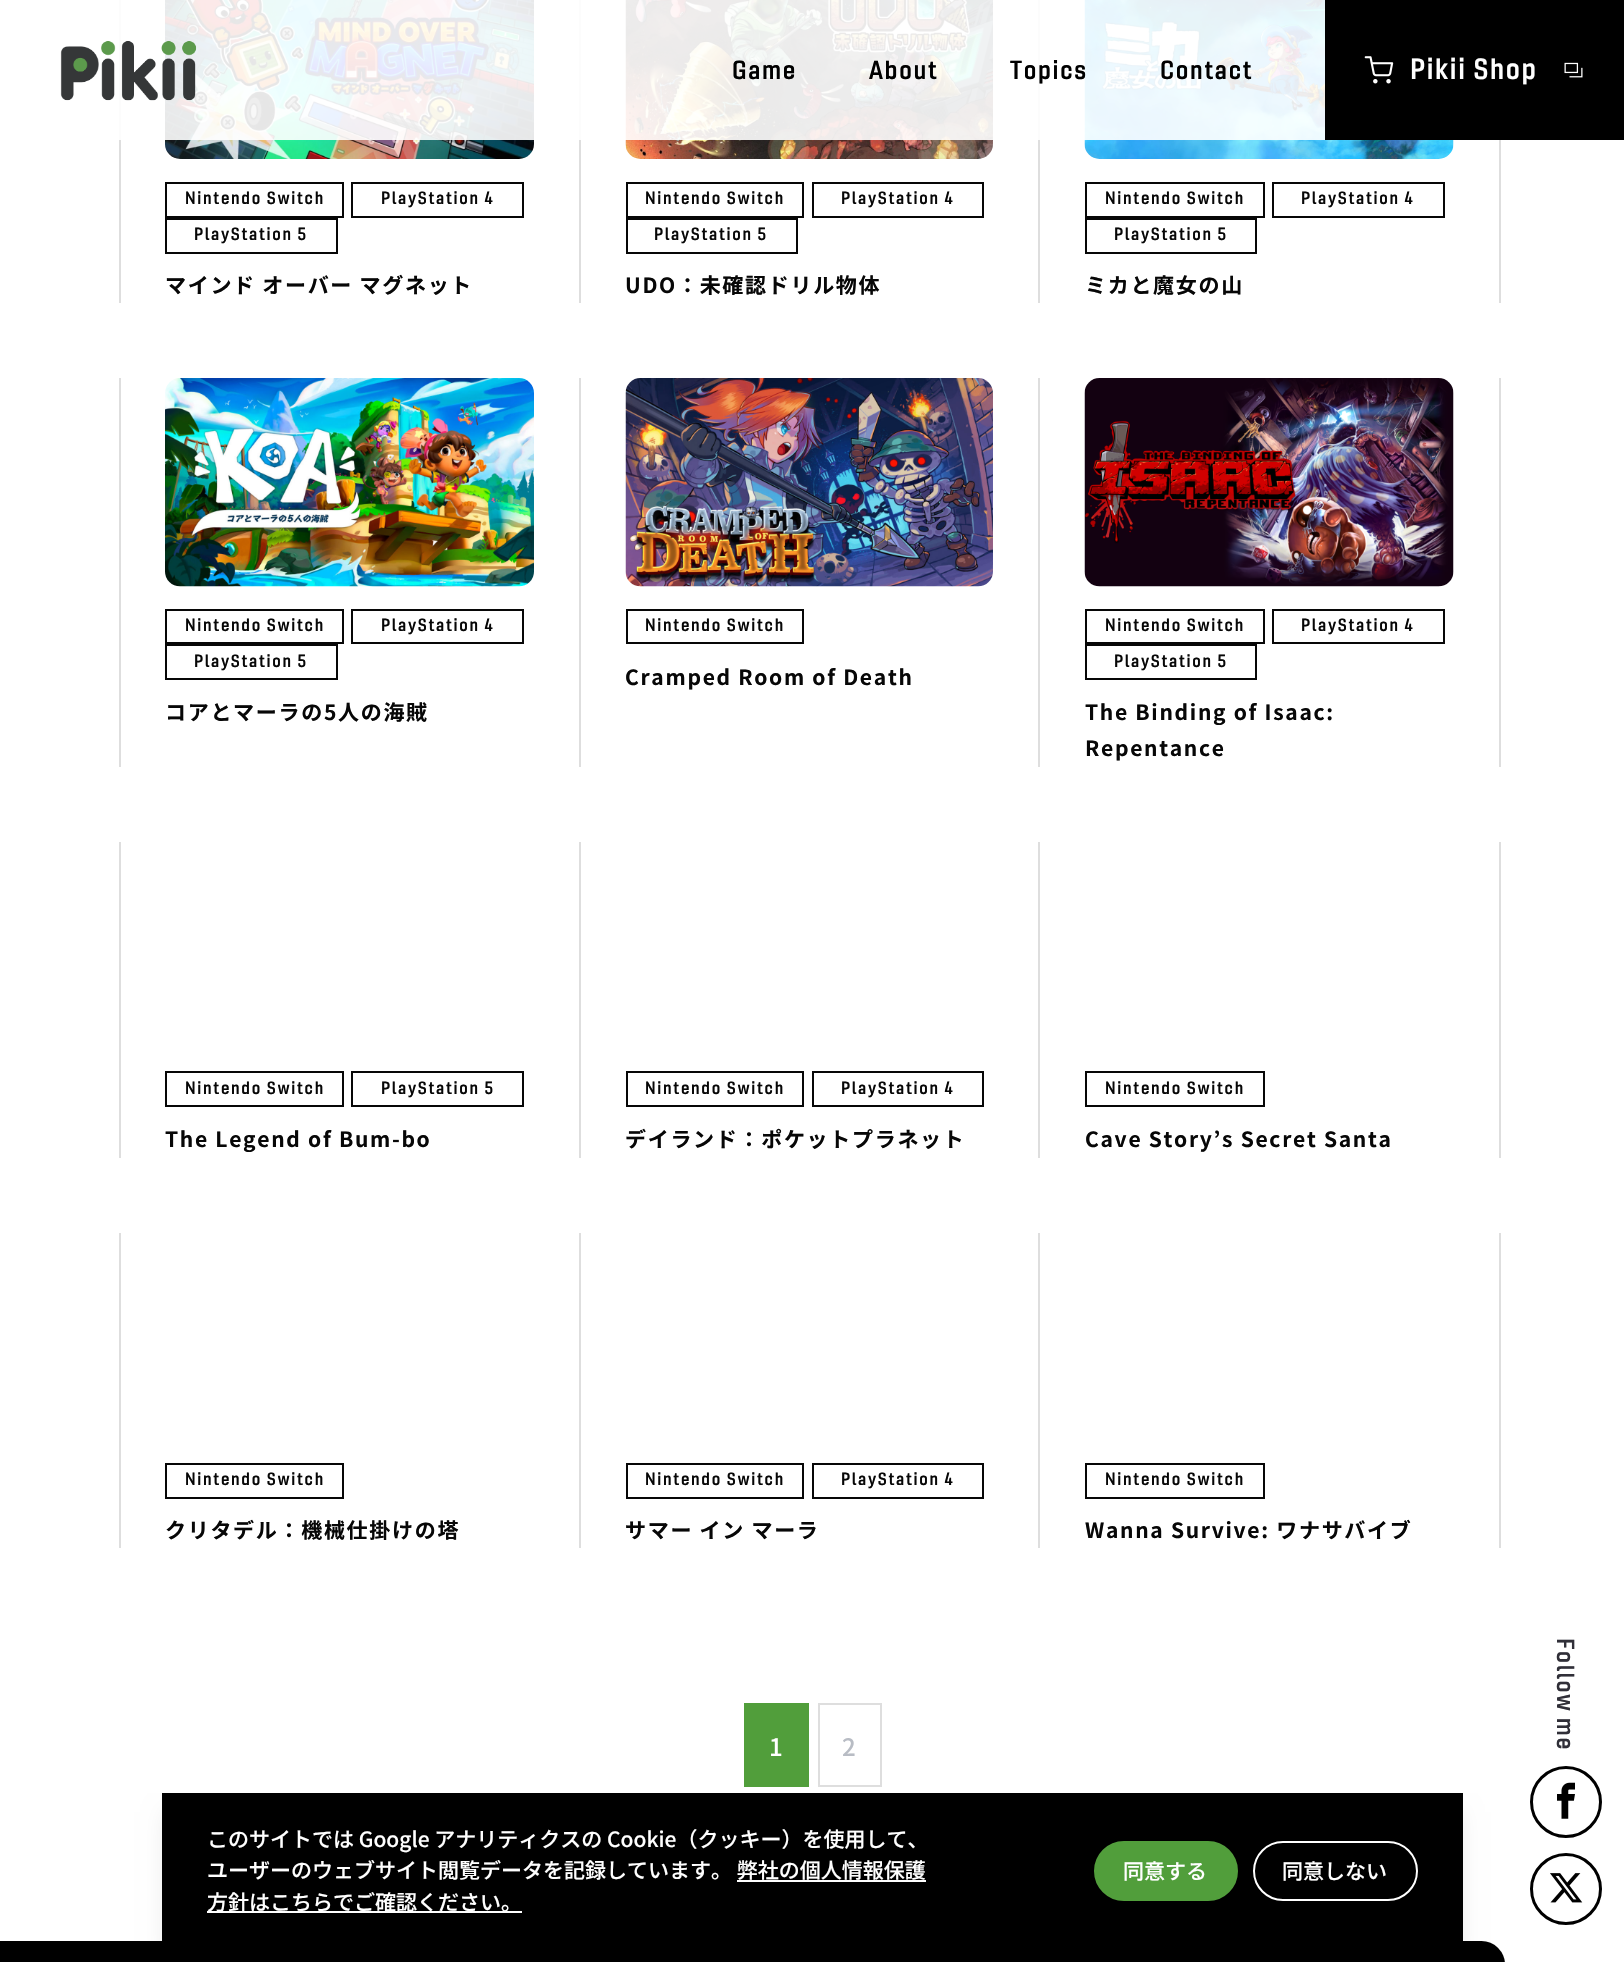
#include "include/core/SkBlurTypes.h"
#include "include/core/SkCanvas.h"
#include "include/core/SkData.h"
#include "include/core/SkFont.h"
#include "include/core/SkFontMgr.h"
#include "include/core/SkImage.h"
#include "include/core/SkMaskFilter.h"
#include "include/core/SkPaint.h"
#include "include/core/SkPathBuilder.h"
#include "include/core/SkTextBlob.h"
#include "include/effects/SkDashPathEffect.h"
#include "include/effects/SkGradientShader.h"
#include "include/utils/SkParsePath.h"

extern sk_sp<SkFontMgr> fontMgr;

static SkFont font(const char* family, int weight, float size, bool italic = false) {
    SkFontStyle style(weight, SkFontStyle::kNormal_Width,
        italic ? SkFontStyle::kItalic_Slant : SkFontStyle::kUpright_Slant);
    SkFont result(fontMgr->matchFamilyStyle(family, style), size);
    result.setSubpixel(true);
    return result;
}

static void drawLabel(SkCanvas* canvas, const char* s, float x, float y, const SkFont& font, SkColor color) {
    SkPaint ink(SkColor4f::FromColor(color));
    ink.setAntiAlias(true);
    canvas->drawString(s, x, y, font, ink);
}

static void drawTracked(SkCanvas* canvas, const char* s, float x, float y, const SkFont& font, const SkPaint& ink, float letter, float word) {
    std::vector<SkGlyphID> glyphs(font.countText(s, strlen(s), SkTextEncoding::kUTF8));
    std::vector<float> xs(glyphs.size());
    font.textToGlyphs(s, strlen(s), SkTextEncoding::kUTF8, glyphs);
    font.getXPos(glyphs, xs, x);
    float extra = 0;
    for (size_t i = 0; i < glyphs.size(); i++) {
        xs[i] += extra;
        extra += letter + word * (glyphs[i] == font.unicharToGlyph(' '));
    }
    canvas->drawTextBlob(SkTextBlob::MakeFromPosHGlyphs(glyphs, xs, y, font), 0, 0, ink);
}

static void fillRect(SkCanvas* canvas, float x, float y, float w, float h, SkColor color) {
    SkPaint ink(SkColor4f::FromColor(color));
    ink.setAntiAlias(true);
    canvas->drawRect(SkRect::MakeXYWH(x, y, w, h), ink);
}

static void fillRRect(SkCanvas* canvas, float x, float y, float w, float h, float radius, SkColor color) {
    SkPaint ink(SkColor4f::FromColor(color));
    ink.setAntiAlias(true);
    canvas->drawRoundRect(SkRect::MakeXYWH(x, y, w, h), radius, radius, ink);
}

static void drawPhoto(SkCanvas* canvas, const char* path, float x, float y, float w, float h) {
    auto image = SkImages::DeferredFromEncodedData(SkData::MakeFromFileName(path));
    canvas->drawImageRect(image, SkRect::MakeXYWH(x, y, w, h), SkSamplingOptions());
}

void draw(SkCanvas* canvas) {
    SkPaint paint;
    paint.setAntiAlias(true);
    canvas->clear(0xFFFFFFFF);
    fillRect(canvas, 579, 0, 2, 303, 0xFFDEDEDE);
    fillRect(canvas, 119, 0, 2, 303, 0xFFDEDEDE);
    drawPhoto(canvas, "assets/img4.png", 165, 0, 369, 159);
    fillRect(canvas, 1038, 0, 2, 303, 0xFFDEDEDE);
    drawPhoto(canvas, "assets/img5.png", 625, 0, 368, 159);
    drawPhoto(canvas, "assets/img6.png", 1084, 0, 370, 159);
    fillRect(canvas, 119, 0, 1206, 140, 0xE6FFFFFF);
    drawPhoto(canvas, "assets/img1.png", 60, 41, 137, 60);
    SkFont font1 = font("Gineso", 700, 25.5f);
    paint.setColor(0xFF000000);
    drawTracked(canvas, "Game", 732, 79, font1, paint, 1.7f, 0);
    drawTracked(canvas, "About", 869, 79, font1, paint, 1.7f, 0);
    drawTracked(canvas, "Topics", 1010, 79, font1, paint, 1.7f, 0);
    drawTracked(canvas, "Contact", 1160, 79, font1, paint, 1.7f, 0);
    fillRect(canvas, 1325, 0, 299, 140, 0xFF000000);
    drawPhoto(canvas, "assets/img2.png", 1364, 56, 30, 28);
    SkFont font2 = font("Gineso", 700, 28.5f);
    paint.setColor(0xFFFFFFFF);
    drawTracked(canvas, "Pikii Shop", 1410, 79, font2, paint, 1.7f, 0);
    drawPhoto(canvas, "assets/img3.png", 1564, 62, 19, 16);
    paint.setStroke(true);
    paint.setStrokeWidth(2);
    paint.setColor(0xFF070707);
    canvas->drawRect(SkRect::MakeXYWH(166, 183, 177, 34), paint);
    SkFont font3 = font("Gineso", 700, 17.25f);
    paint.setStroke(false);
    drawTracked(canvas, "Nintendo Switch", 185, 204, font3, paint, 1.7f, 0);
    paint.setStroke(true);
    canvas->drawRect(SkRect::MakeXYWH(352, 183, 171, 34), paint);
    paint.setStroke(false);
    drawTracked(canvas, "PlayStation 4", 381, 204, font3, paint, 1.7f, 0);
    paint.setStroke(true);
    canvas->drawRect(SkRect::MakeXYWH(166, 219, 171, 34), paint);
    paint.setStroke(false);
    drawTracked(canvas, "PlayStation 5", 194, 240, font3, paint, 1.7f, 0);
    SkFont font4 = font("Noto Sans JP", 700, 21);
    drawTracked(canvas, "マインド オーバー マグネット", 165, 293, font4, paint, 1.7f, 0);
    paint.setStroke(true);
    canvas->drawRect(SkRect::MakeXYWH(627, 183, 176, 34), paint);
    paint.setStroke(false);
    drawTracked(canvas, "Nintendo Switch", 645, 204, font3, paint, 1.7f, 0);
    paint.setStroke(true);
    canvas->drawRect(SkRect::MakeXYWH(813, 183, 170, 34), paint);
    paint.setStroke(false);
    drawTracked(canvas, "PlayStation 4", 841, 204, font3, paint, 1.7f, 0);
    paint.setStroke(true);
    canvas->drawRect(SkRect::MakeXYWH(627, 219, 170, 34), paint);
    paint.setStroke(false);
    drawTracked(canvas, "PlayStation 5", 654, 240, font3, paint, 1.7f, 0);
    drawTracked(canvas, "UDO：未確認ドリル物体", 625, 293, font4, paint, 1.7f, 0);
    fillRect(canvas, 1499, 140, 2, 163, 0xFFDEDEDE);
    paint.setStroke(true);
    canvas->drawRect(SkRect::MakeXYWH(1086, 183, 178, 34), paint);
    paint.setStroke(false);
    drawTracked(canvas, "Nintendo Switch", 1105, 204, font3, paint, 1.7f, 0);
    paint.setStroke(true);
    canvas->drawRect(SkRect::MakeXYWH(1273, 183, 171, 34), paint);
    paint.setStroke(false);
    drawTracked(canvas, "PlayStation 4", 1301, 204, font3, paint, 1.7f, 0);
    paint.setStroke(true);
    canvas->drawRect(SkRect::MakeXYWH(1086, 219, 170, 34), paint);
    paint.setStroke(false);
    drawTracked(canvas, "PlayStation 5", 1114, 240, font3, paint, 1.7f, 0);
    drawTracked(canvas, "ミカと魔女の山", 1085, 293, font4, paint, 1.7f, 0);
    fillRect(canvas, 579, 378, 2, 389, 0xFFDEDEDE);
    fillRect(canvas, 119, 378, 2, 389, 0xFFDEDEDE);
    drawPhoto(canvas, "assets/img7.png", 165, 378, 369, 209);
    paint.setStroke(true);
    canvas->drawRect(SkRect::MakeXYWH(166, 610, 177, 33), paint);
    paint.setStroke(false);
    drawTracked(canvas, "Nintendo Switch", 185, 631, font3, paint, 1.7f, 0);
    paint.setStroke(true);
    canvas->drawRect(SkRect::MakeXYWH(352, 610, 171, 33), paint);
    paint.setStroke(false);
    drawTracked(canvas, "PlayStation 4", 381, 631, font3, paint, 1.7f, 0);
    paint.setStroke(true);
    canvas->drawRect(SkRect::MakeXYWH(166, 645, 171, 34), paint);
    paint.setStroke(false);
    drawTracked(canvas, "PlayStation 5", 194, 667, font3, paint, 1.7f, 0);
    drawTracked(canvas, "コアとマーラの5人の海賊", 165, 720, font4, paint, 1.7f, 0);
    fillRect(canvas, 1038, 378, 2, 389, 0xFFDEDEDE);
    drawPhoto(canvas, "assets/img8.png", 625, 378, 368, 209);
    paint.setStroke(true);
    canvas->drawRect(SkRect::MakeXYWH(627, 610, 176, 33), paint);
    paint.setStroke(false);
    drawTracked(canvas, "Nintendo Switch", 645, 631, font3, paint, 1.7f, 0);
    drawTracked(canvas, "Cramped Room of Death", 625, 685, font4, paint, 1.7f, 0);
    fillRect(canvas, 1499, 378, 2, 389, 0xFFDEDEDE);
    drawPhoto(canvas, "assets/img9.png", 1084, 378, 370, 209);
    paint.setStroke(true);
    canvas->drawRect(SkRect::MakeXYWH(1086, 610, 178, 33), paint);
    paint.setStroke(false);
    drawTracked(canvas, "Nintendo Switch", 1105, 631, font3, paint, 1.7f, 0);
    paint.setStroke(true);
    canvas->drawRect(SkRect::MakeXYWH(1273, 610, 171, 33), paint);
    paint.setStroke(false);
    drawTracked(canvas, "PlayStation 4", 1301, 631, font3, paint, 1.7f, 0);
    paint.setStroke(true);
    canvas->drawRect(SkRect::MakeXYWH(1086, 645, 170, 34), paint);
    paint.setStroke(false);
    drawTracked(canvas, "PlayStation 5", 1114, 667, font3, paint, 1.7f, 0);
    drawTracked(canvas, "The Binding of Isaac:", 1085, 720, font4, paint, 1.7f, 0);
    drawTracked(canvas, "Repentance", 1085, 756, font4, paint, 1.7f, 0);
    fillRect(canvas, 579, 842, 2, 316, 0xFFDEDEDE);
    fillRect(canvas, 119, 842, 2, 316, 0xFFDEDEDE);
    paint.setStroke(true);
    canvas->drawRect(SkRect::MakeXYWH(166, 1072, 177, 34), paint);
    paint.setStroke(false);
    drawTracked(canvas, "Nintendo Switch", 185, 1094, font3, paint, 1.7f, 0);
    paint.setStroke(true);
    canvas->drawRect(SkRect::MakeXYWH(352, 1072, 171, 34), paint);
    paint.setStroke(false);
    drawTracked(canvas, "PlayStation 5", 381, 1094, font3, paint, 1.7f, 0);
    drawTracked(canvas, "The Legend of Bum-bo", 165, 1147, font4, paint, 1.7f, 0);
    fillRect(canvas, 1038, 842, 2, 316, 0xFFDEDEDE);
    paint.setStroke(true);
    canvas->drawRect(SkRect::MakeXYWH(627, 1072, 176, 34), paint);
    paint.setStroke(false);
    drawTracked(canvas, "Nintendo Switch", 645, 1094, font3, paint, 1.7f, 0);
    paint.setStroke(true);
    canvas->drawRect(SkRect::MakeXYWH(813, 1072, 170, 34), paint);
    paint.setStroke(false);
    drawTracked(canvas, "PlayStation 4", 841, 1094, font3, paint, 1.7f, 0);
    drawTracked(canvas, "デイランド：ポケットプラネット", 625, 1147, font4, paint, 1.7f, 0);
    fillRect(canvas, 1499, 842, 2, 316, 0xFFDEDEDE);
    paint.setStroke(true);
    canvas->drawRect(SkRect::MakeXYWH(1086, 1072, 178, 34), paint);
    paint.setStroke(false);
    drawTracked(canvas, "Nintendo Switch", 1105, 1094, font3, paint, 1.7f, 0);
    drawTracked(canvas, "Cave Story’s Secret Santa", 1085, 1147, font4, paint, 1.7f, 0);
    fillRect(canvas, 579, 1233, 2, 315, 0xFFDEDEDE);
    fillRect(canvas, 119, 1233, 2, 315, 0xFFDEDEDE);
    paint.setStroke(true);
    canvas->drawRect(SkRect::MakeXYWH(166, 1464, 177, 34), paint);
    paint.setStroke(false);
    drawTracked(canvas, "Nintendo Switch", 185, 1485, font3, paint, 1.7f, 0);
    drawTracked(canvas, "クリタデル：機械仕掛けの塔", 165, 1538, font4, paint, 1.7f, 0);
    fillRect(canvas, 1038, 1233, 2, 315, 0xFFDEDEDE);
    paint.setStroke(true);
    canvas->drawRect(SkRect::MakeXYWH(627, 1464, 176, 34), paint);
    paint.setStroke(false);
    drawTracked(canvas, "Nintendo Switch", 645, 1485, font3, paint, 1.7f, 0);
    paint.setStroke(true);
    canvas->drawRect(SkRect::MakeXYWH(813, 1464, 170, 34), paint);
    paint.setStroke(false);
    drawTracked(canvas, "PlayStation 4", 841, 1485, font3, paint, 1.7f, 0);
    drawTracked(canvas, "サマー イン マーラ", 625, 1538, font4, paint, 1.7f, 0);
    fillRect(canvas, 1499, 1233, 2, 315, 0xFFDEDEDE);
    paint.setStroke(true);
    canvas->drawRect(SkRect::MakeXYWH(1086, 1464, 178, 34), paint);
    paint.setStroke(false);
    drawTracked(canvas, "Nintendo Switch", 1105, 1485, font3, paint, 1.7f, 0);
    drawTracked(canvas, "Wanna Survive: ワナサバイブ", 1085, 1538, font4, paint, 1.7f, 0);
    fillRect(canvas, 744, 1703, 65, 84, 0xFF519E3B);
    SkFont font5 = font("Noto Sans JP", 500, 24);
    drawLabel(canvas, "1", 769, 1756, font5, 0xFFFFFFFF);
    paint.setStroke(true);
    paint.setColor(0xFFDEDEDE);
    canvas->drawRect(SkRect::MakeXYWH(819, 1704, 62, 82), paint);
    drawLabel(canvas, "2", 842, 1756, font5, 0xFFB8BCC4);
    SkFont font6 = font("Gineso", 700, 24);
    paint.setStroke(false);
    paint.setColor(0xFF302F38);
    canvas->save();
    canvas->rotate(90, 1557, 1638);
    drawTracked(canvas, "Follow me", 1557, 1638, font6, paint, 1.7f, -1);
    canvas->restore();
    paint.setStroke(true);
    paint.setStrokeWidth(3);
    paint.setColor(0xFF000000);
    canvas->drawCircle(1566, 1802, 34.5f, paint);
    drawPhoto(canvas, "assets/img10.png", 1557, 1782, 18, 37);
    canvas->drawCircle(1566, 1889, 34.5f, paint);
    drawPhoto(canvas, "assets/img11.png", 1550, 1873, 33, 30);
    fillRRect(canvas, -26, 1941, 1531, 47, 26, 0xFF000000);
    canvas->save();
    canvas->clipRect(SkRect::MakeXYWH(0, 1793, 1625, 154));
    paint.setStroke(false);
    paint.setColor(0x1A000000);
    paint.setMaskFilter(SkMaskFilter::MakeBlur(kNormal_SkBlurStyle, 11));
    canvas->drawRect(SkRect::MakeXYWH(167, 1812, 1291, 146), paint);
    paint.setMaskFilter(nullptr);
    canvas->restore();
    fillRect(canvas, 162, 1793, 1301, 148, 0xFF000000);
    SkFont font7 = font("Noto Sans JP", 500, 21);
    drawLabel(canvas, "このサイトでは Google アナリティクスの Cookie（クッキー）を使用して、", 207, 1847, font7, 0xFFFFFFFF);
    drawLabel(canvas, "ユーザーのウェブサイト閲覧データを記録しています。 弊社の個人情報保護", 207, 1878, font7, 0xFFFFFFFF);
    fillRect(canvas, 207, 1911, 315, 2, 0xFFFFFFFF);
    drawLabel(canvas, "方針はこちらでご確認ください。", 207, 1910, font7, 0xFFFFFFFF);
    fillRect(canvas, 737, 1880, 189, 2, 0xFFFFFFFF);
    paint.setColor(0xFF519E3B);
    canvas->drawRoundRect(SkRect::MakeXYWH(1095, 1842, 142, 58), 29, 29, paint);
    paint.setStroke(true);
    paint.setStrokeWidth(2);
    canvas->drawRoundRect(SkRect::MakeXYWH(1095, 1842, 142, 58), 29, 29, paint);
    drawLabel(canvas, "同意する", 1123, 1879, font7, 0xFFFFFFFF);
    paint.setColor(0xFFFFFFFF);
    canvas->drawRoundRect(SkRect::MakeXYWH(1254, 1842, 163, 58), 29, 29, paint);
    drawLabel(canvas, "同意しない", 1282, 1879, font7, 0xFFFFFFFF);
}
